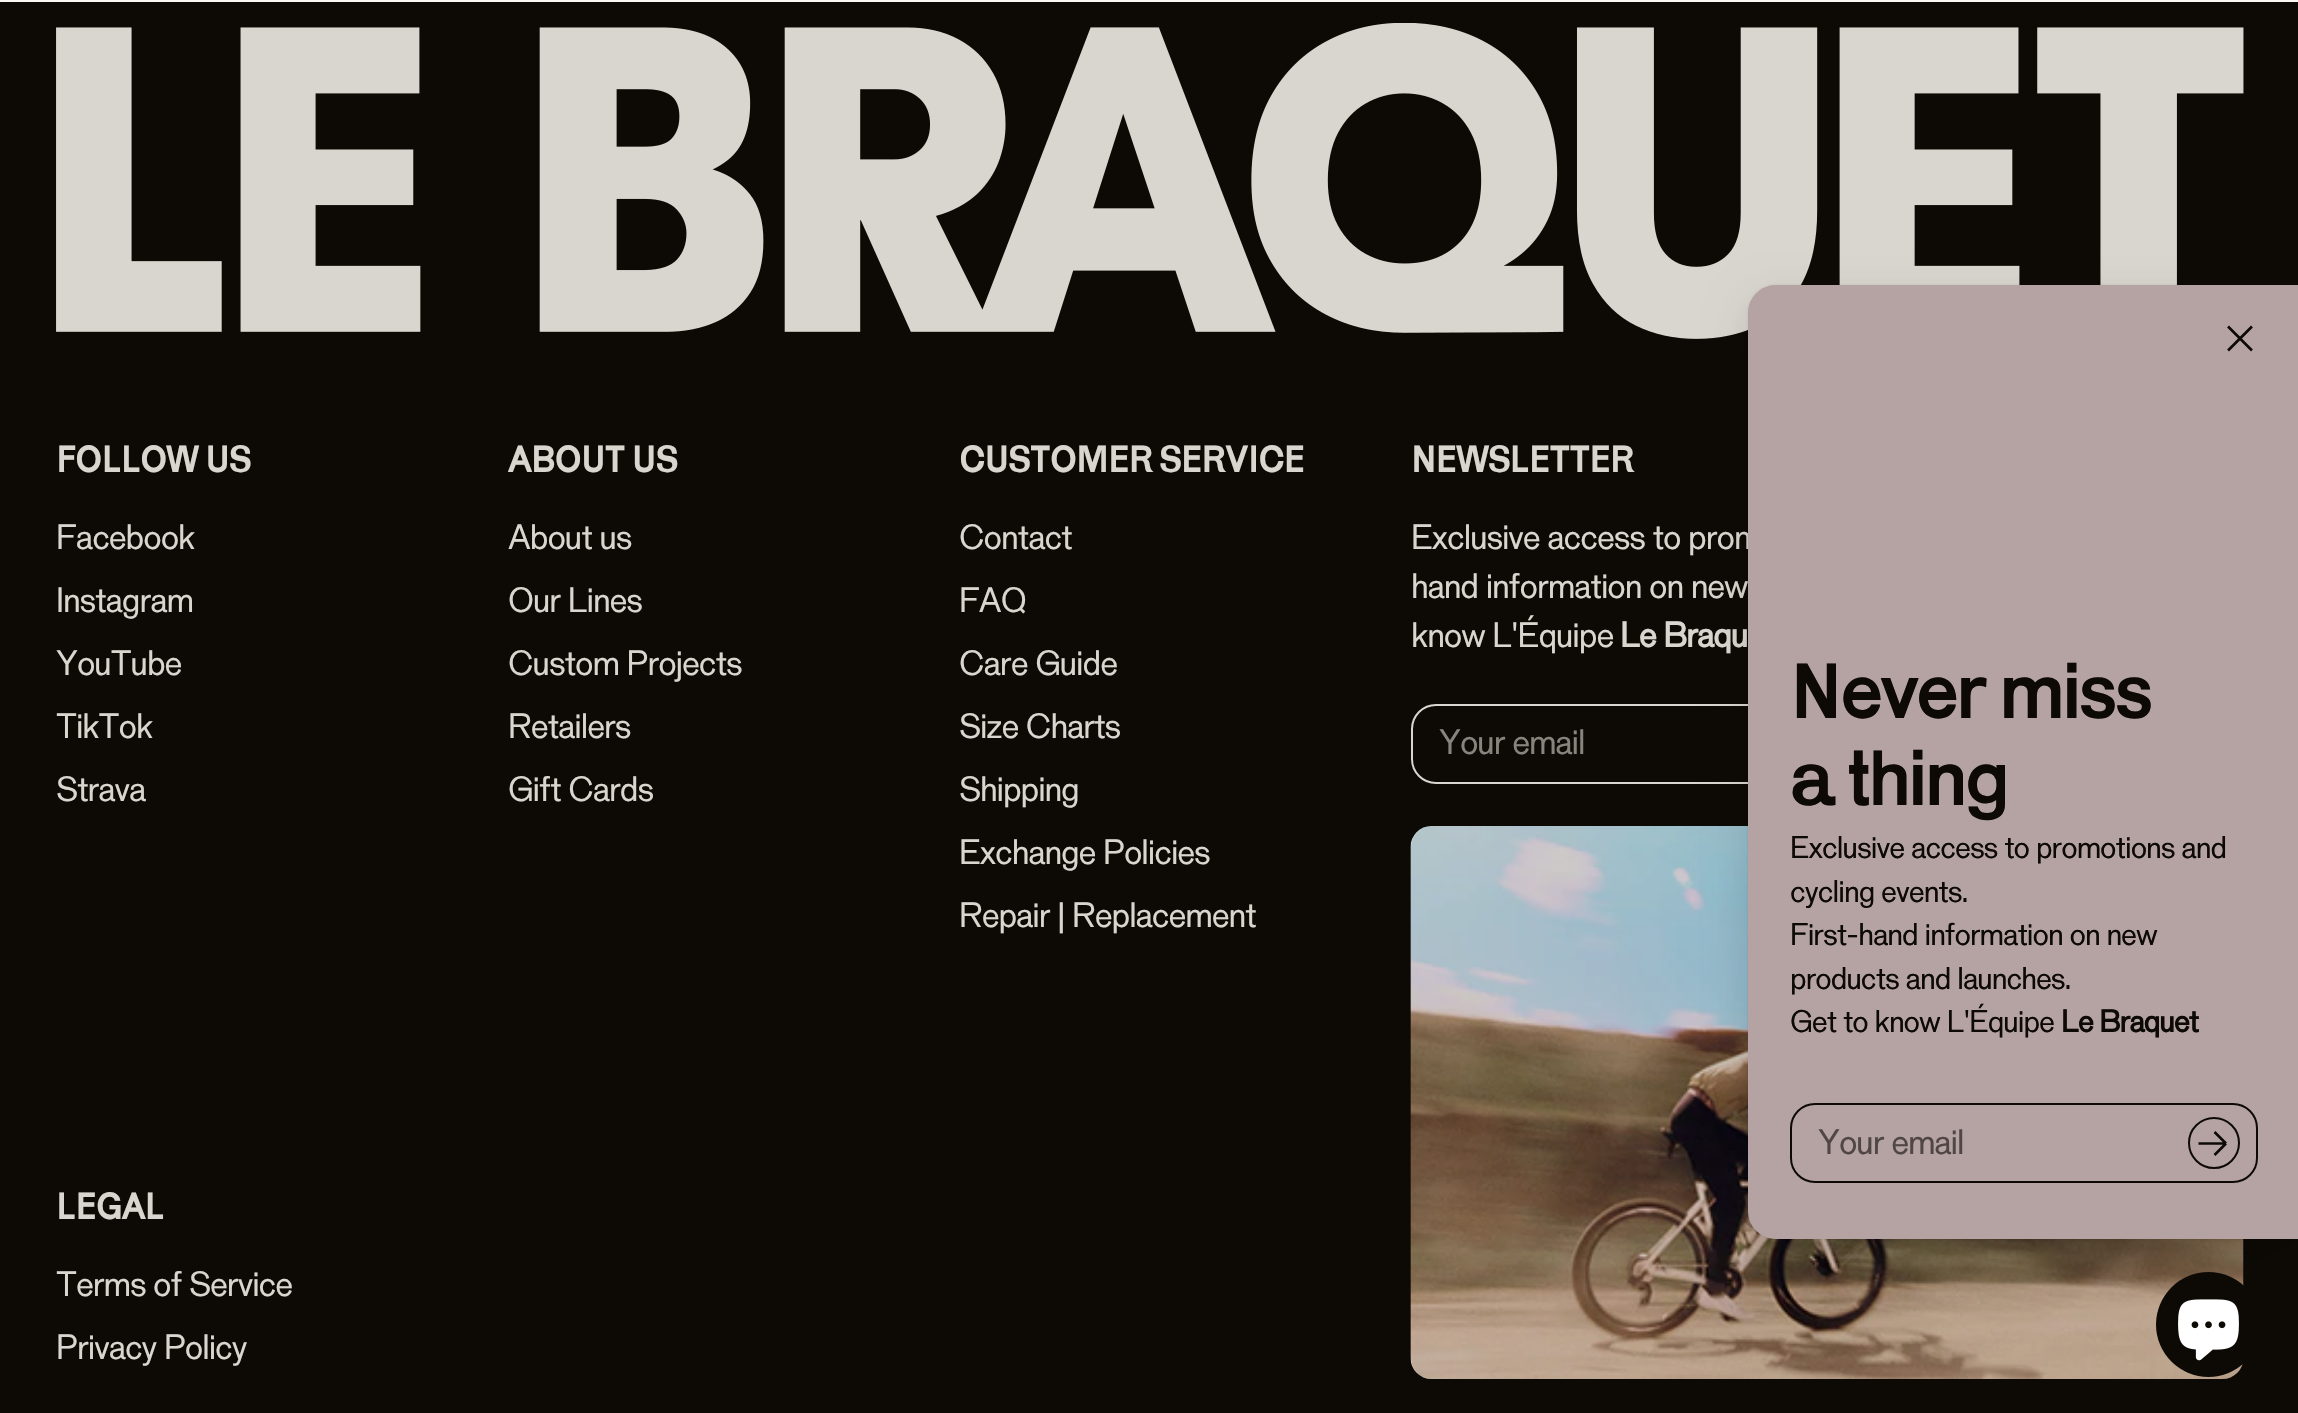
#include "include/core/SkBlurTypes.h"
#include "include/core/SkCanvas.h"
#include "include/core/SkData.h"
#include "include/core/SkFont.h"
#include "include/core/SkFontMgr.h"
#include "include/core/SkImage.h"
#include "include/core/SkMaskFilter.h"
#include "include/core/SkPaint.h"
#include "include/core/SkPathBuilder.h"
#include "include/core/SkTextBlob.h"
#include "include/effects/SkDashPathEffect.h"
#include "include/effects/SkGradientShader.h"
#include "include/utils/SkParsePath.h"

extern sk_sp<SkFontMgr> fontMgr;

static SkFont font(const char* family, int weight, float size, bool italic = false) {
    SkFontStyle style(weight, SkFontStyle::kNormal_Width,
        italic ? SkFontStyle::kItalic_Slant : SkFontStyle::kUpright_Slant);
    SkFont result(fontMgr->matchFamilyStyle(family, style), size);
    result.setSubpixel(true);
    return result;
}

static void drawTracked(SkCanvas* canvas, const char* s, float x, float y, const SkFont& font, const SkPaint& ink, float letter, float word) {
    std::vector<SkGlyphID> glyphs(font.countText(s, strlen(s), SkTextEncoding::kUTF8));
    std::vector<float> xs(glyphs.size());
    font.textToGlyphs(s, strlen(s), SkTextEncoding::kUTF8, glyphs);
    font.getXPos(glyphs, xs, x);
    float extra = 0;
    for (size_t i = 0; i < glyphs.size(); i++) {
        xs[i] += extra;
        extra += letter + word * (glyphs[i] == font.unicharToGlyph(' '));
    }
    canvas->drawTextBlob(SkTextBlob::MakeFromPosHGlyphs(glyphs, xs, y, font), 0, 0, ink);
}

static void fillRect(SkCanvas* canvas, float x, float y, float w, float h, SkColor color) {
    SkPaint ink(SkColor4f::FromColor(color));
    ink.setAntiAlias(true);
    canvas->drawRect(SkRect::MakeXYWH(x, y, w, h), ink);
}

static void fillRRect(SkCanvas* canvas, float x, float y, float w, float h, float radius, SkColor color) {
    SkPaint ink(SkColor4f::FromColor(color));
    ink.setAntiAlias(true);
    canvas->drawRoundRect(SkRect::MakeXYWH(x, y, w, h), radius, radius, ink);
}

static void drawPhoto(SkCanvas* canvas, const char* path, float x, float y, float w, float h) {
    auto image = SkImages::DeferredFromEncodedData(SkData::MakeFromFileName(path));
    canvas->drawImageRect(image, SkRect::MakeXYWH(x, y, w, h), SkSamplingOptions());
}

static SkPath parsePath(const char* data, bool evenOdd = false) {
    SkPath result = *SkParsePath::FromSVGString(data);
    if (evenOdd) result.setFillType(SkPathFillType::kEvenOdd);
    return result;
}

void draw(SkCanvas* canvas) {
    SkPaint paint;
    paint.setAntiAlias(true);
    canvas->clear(0xFF0D0A05);
    fillRect(canvas, 0, 0, 2298, 2, 0xFFF9F9F2);
    drawPhoto(canvas, "assets/img1.png", 56, 23, 2188, 316);
    SkFont font1 = font("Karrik", 400, 39);
    paint.setColor(0xFFD9D6CF);
    drawTracked(canvas, "FOLLOW US", 56, 472, font1, paint, -1.2f, 0);
    SkFont font2 = font("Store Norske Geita", 400, 35);
    drawTracked(canvas, "Facebook", 56, 549, font2, paint, -1.05f, 0);
    drawTracked(canvas, "Instagram", 56, 612, font2, paint, -1.05f, 0);
    drawTracked(canvas, "YouTube", 56, 675, font2, paint, -1.05f, 0);
    drawTracked(canvas, "TikTok", 56, 738, font2, paint, -1.05f, 0);
    drawTracked(canvas, "Strava", 56, 801, font2, paint, -1.05f, 0);
    drawTracked(canvas, "ABOUT US", 508, 472, font1, paint, -1.2f, 0);
    drawTracked(canvas, "About us", 508, 549, font2, paint, -1.05f, 0);
    drawTracked(canvas, "Our Lines", 508, 612, font2, paint, -1.05f, 0);
    drawTracked(canvas, "Custom Projects", 508, 675, font2, paint, -1.05f, 0);
    drawTracked(canvas, "Retailers", 508, 738, font2, paint, -1.05f, 0);
    drawTracked(canvas, "Gift Cards", 508, 801, font2, paint, -1.05f, 0);
    drawTracked(canvas, "CUSTOMER SERVICE", 959, 472, font1, paint, -1.2f, 0);
    drawTracked(canvas, "Contact", 959, 549, font2, paint, -1.05f, 0);
    drawTracked(canvas, "FAQ", 959, 612, font2, paint, -1.05f, 0);
    drawTracked(canvas, "Care Guide", 959, 675, font2, paint, -1.05f, 0);
    drawTracked(canvas, "Size Charts", 959, 738, font2, paint, -1.05f, 0);
    drawTracked(canvas, "Shipping", 959, 801, font2, paint, -1.05f, 0);
    drawTracked(canvas, "Exchange Policies", 959, 864, font2, paint, -1.05f, 0);
    drawTracked(canvas, "Repair | Replacement", 959, 927, font2, paint, -1.05f, 0);
    drawTracked(canvas, "NEWSLETTER", 1411, 472, font1, paint, -1.2f, 0);
    drawTracked(canvas, "Exclusive access to prom", 1411, 549, font2, paint, -1.05f, 0);
    drawTracked(canvas, "hand information on new", 1411, 598, font2, paint, -1.05f, 0);
    drawTracked(canvas, "know L'Équipe", 1411, 647, font2, paint, -1.05f, 0);
    SkFont font3 = font("Store Norske Geita", 700, 35);
    drawTracked(canvas, "Le Braqu", 1620, 647, font3, paint, -1.05f, 0);
    paint.setStroke(true);
    paint.setStrokeWidth(2);
    canvas->drawRoundRect(SkRect::MakeXYWH(1412, 705, 831, 78), 24, 24, paint);
    paint.setStroke(false);
    paint.setColor(0xFF87847E);
    drawTracked(canvas, "Your email", 1439, 754, font2, paint, -1.05f, 0);
    drawPhoto(canvas, "assets/img2.png", 1410, 826, 834, 553);
    fillRRect(canvas, 1411, 826, 833, 553, 21, 0x33000000);
    paint.setColor(0xFFD9D6CF);
    drawTracked(canvas, "LEGAL", 56, 1219, font1, paint, -1.2f, 0);
    drawTracked(canvas, "Terms of Service", 56, 1296, font2, paint, -1.05f, 0);
    drawTracked(canvas, "Privacy Policy", 56, 1359, font2, paint, -1.05f, 0);
    paint.setColor(0x1F000000);
    paint.setMaskFilter(SkMaskFilter::MakeBlur(kNormal_SkBlurStyle, 21));
    canvas->drawRoundRect(SkRect::MakeXYWH(1748, 299, 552, 954), 28, 28, paint);
    paint.setMaskFilter(nullptr);
    paint.setColor(0x1A000000);
    paint.setMaskFilter(SkMaskFilter::MakeBlur(kNormal_SkBlurStyle, 1));
    canvas->drawRoundRect(SkRect::MakeXYWH(1748, 285, 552, 954), 28, 28, paint);
    paint.setMaskFilter(nullptr);
    paint.setColor(0xFFB5A3A3);
    canvas->drawPath(parsePath("M1776 285H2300V1239H1776C1760.5 1239 1748 1226.5 1748 1211V313C1748 297.5 1760.5 285 1776 285Z"), paint);
    paint.setStroke(true);
    paint.setStrokeWidth(2.7f);
    paint.setStrokeCap(SkPaint::kSquare_Cap);
    paint.setColor(0xFF0D0A05);
    canvas->drawPath(parsePath("M2229 327.5L2240 338.5M2251 349.5L2240 338.5M2240 338.5L2251 327.5M2240 338.5L2229 349.5"), paint);
    SkFont font4 = font("Karrik", 400, 80);
    paint.setStroke(false);
    drawTracked(canvas, "Never miss", 1790, 718, font4, paint, -2.4f, 0);
    drawTracked(canvas, "a thing", 1790, 805, font4, paint, -2.4f, 0);
    SkFont font5 = font("Store Norske Geita", 400, 31.1f);
    drawTracked(canvas, "Exclusive access to promotions and", 1790, 858, font5, paint, -0.95f, 0);
    drawTracked(canvas, "cycling events.", 1790, 902, font5, paint, -0.95f, 0);
    drawTracked(canvas, "First-hand information on new", 1790, 945, font5, paint, -0.95f, 0);
    drawTracked(canvas, "products and launches.", 1790, 989, font5, paint, -0.95f, 0);
    drawTracked(canvas, "Get to know L'Équipe", 1790, 1032, font5, paint, -0.95f, 0);
    SkFont font6 = font("Store Norske Geita", 700, 31.1f);
    drawTracked(canvas, "Le Braquet", 2061, 1032, font6, paint, -0.95f, 0);
    paint.setStroke(true);
    paint.setStrokeWidth(2);
    paint.setStrokeCap(SkPaint::kButt_Cap);
    canvas->drawRoundRect(SkRect::MakeXYWH(1791, 1104, 466, 78), 24, 24, paint);
    paint.setStroke(false);
    paint.setColor(0xFF504744);
    drawTracked(canvas, "Your email", 1818, 1154, font2, paint, -1.05f, 0);
    paint.setStroke(true);
    paint.setColor(0xFF0D0A05);
    canvas->drawCircle(2214, 1143, 25, paint);
    paint.setStrokeWidth(2.6f);
    canvas->drawPath(parsePath("M2198.5 1143.5H2226M2226 1143.5L2214.5 1132M2226 1143.5L2214.5 1155"), paint);
    paint.setStroke(false);
    canvas->drawCircle(2208.5f, 1324.5f, 52.5f, paint);
    drawPhoto(canvas, "assets/img3.png", 2178, 1299, 61, 62);
}
